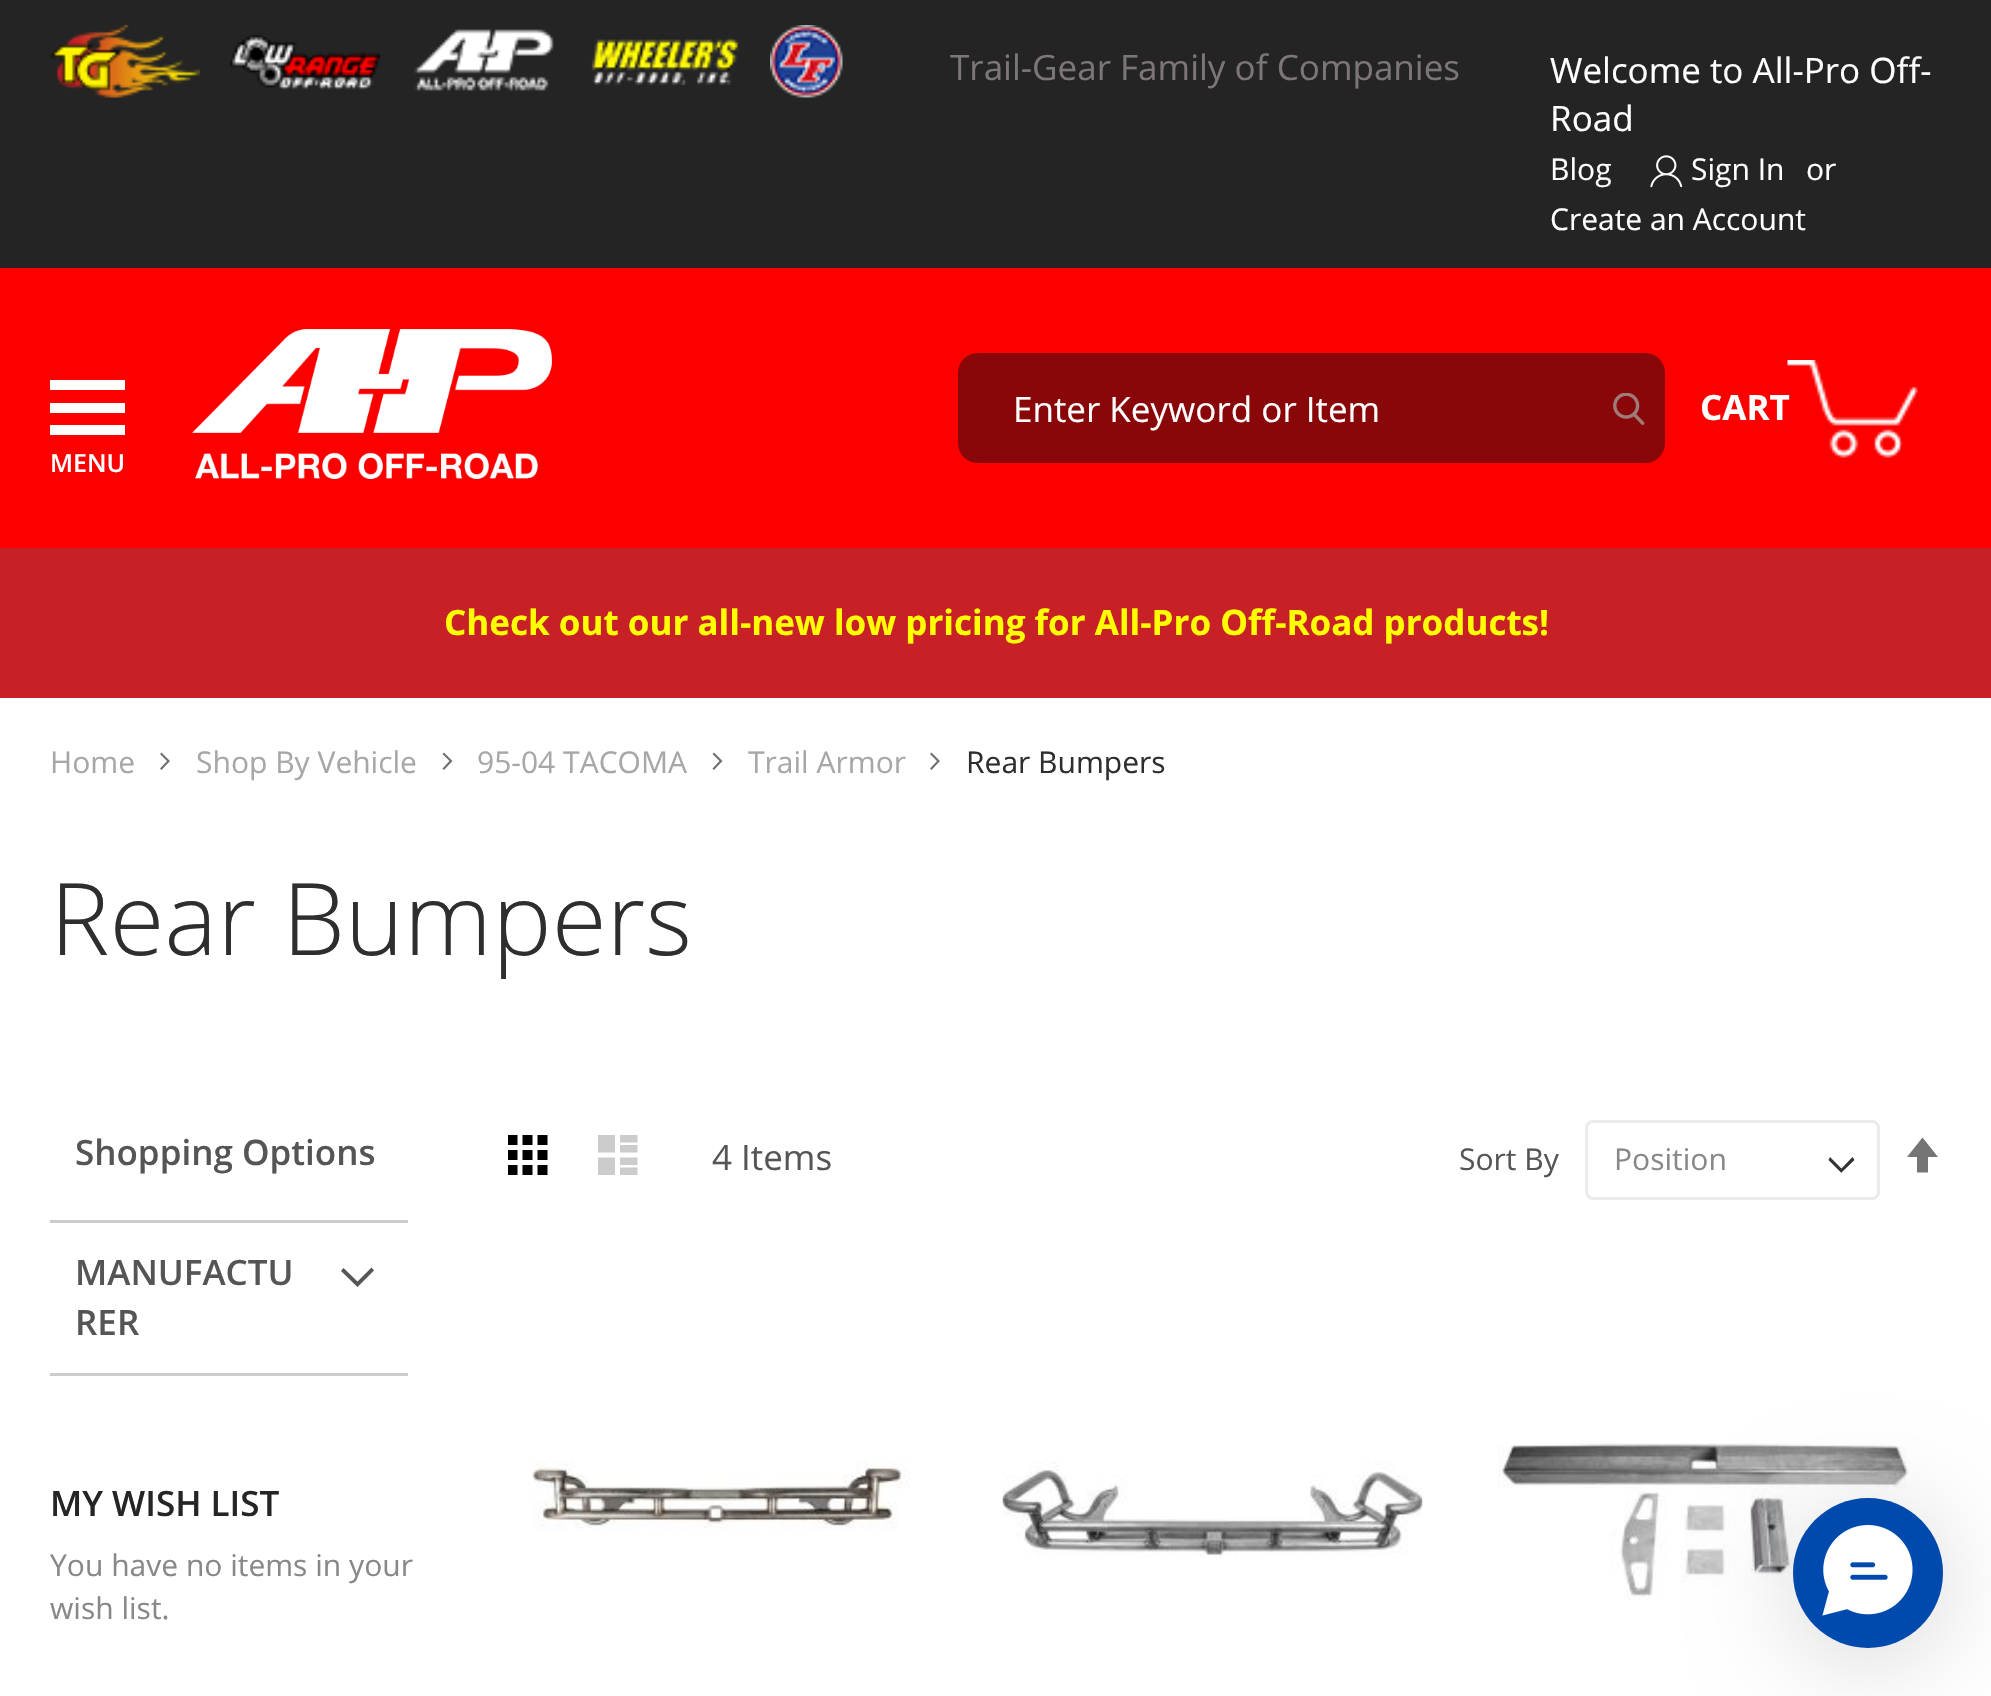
#include "include/core/SkBlurTypes.h"
#include "include/core/SkCanvas.h"
#include "include/core/SkData.h"
#include "include/core/SkFont.h"
#include "include/core/SkFontMgr.h"
#include "include/core/SkImage.h"
#include "include/core/SkMaskFilter.h"
#include "include/core/SkPaint.h"
#include "include/core/SkPathBuilder.h"
#include "include/core/SkTextBlob.h"
#include "include/effects/SkDashPathEffect.h"
#include "include/effects/SkGradientShader.h"
#include "include/utils/SkParsePath.h"

extern sk_sp<SkFontMgr> fontMgr;

static SkFont font(const char* family, int weight, float size, bool italic = false) {
    SkFontStyle style(weight, SkFontStyle::kNormal_Width,
        italic ? SkFontStyle::kItalic_Slant : SkFontStyle::kUpright_Slant);
    SkFont result(fontMgr->matchFamilyStyle(family, style), size);
    result.setSubpixel(true);
    return result;
}

static void drawLabel(SkCanvas* canvas, const char* s, float x, float y, const SkFont& font, SkColor color) {
    SkPaint ink(SkColor4f::FromColor(color));
    ink.setAntiAlias(true);
    canvas->drawString(s, x, y, font, ink);
}

static void fillRect(SkCanvas* canvas, float x, float y, float w, float h, SkColor color) {
    SkPaint ink(SkColor4f::FromColor(color));
    ink.setAntiAlias(true);
    canvas->drawRect(SkRect::MakeXYWH(x, y, w, h), ink);
}

static void fillRRect(SkCanvas* canvas, float x, float y, float w, float h, float radius, SkColor color) {
    SkPaint ink(SkColor4f::FromColor(color));
    ink.setAntiAlias(true);
    canvas->drawRoundRect(SkRect::MakeXYWH(x, y, w, h), radius, radius, ink);
}

static void drawPhoto(SkCanvas* canvas, const char* path, float x, float y, float w, float h) {
    auto image = SkImages::DeferredFromEncodedData(SkData::MakeFromFileName(path));
    canvas->drawImageRect(image, SkRect::MakeXYWH(x, y, w, h), SkSamplingOptions());
}

static SkPath parsePath(const char* data, bool evenOdd = false) {
    SkPath result = *SkParsePath::FromSVGString(data);
    if (evenOdd) result.setFillType(SkPathFillType::kEvenOdd);
    return result;
}

void draw(SkCanvas* canvas) {
    SkPaint paint;
    paint.setAntiAlias(true);
    canvas->clear(0xFFFFFFFF);
    fillRect(canvas, 0, 268, 1991, 280, 0xFFFC0000);
    fillRect(canvas, 0, 0, 1991, 268, 0xFF242424);
    drawPhoto(canvas, "assets/img1.png", 50, 25, 150, 73);
    drawPhoto(canvas, "assets/img2.png", 230, 34, 150, 56);
    drawPhoto(canvas, "assets/img3.png", 414, 29, 140, 62);
    drawPhoto(canvas, "assets/img4.png", 591, 37, 149, 48);
    drawPhoto(canvas, "assets/img5.png", 770, 25, 73, 73);
    SkFont font1 = font("Open Sans", 400, 35);
    drawLabel(canvas, "Trail-Gear Family of Companies", 950, 80, font1, 0xFF7C7676);
    drawLabel(canvas, "Welcome to All-Pro Off-", 1550, 83, font1, 0xFFFFFFFF);
    drawLabel(canvas, "Road", 1550, 131, font1, 0xFFFFFFFF);
    SkFont font2 = font("Open Sans", 400, 30);
    drawLabel(canvas, "Blog", 1550, 180, font2, 0xFFFFFFFF);
    drawPhoto(canvas, "assets/img6.png", 1650, 155, 33, 33);
    drawLabel(canvas, "Sign In", 1691, 180, font2, 0xFFFFFFFF);
    drawLabel(canvas, "or", 1806, 180, font2, 0xFFFFFFFF);
    drawLabel(canvas, "Create an Account", 1550, 230, font2, 0xFFFFFFFF);
    drawPhoto(canvas, "assets/img7.png", 192, 329, 360, 150);
    fillRRect(canvas, 958, 353, 707, 110, 20, 0xFF890708);
    drawLabel(canvas, "Enter Keyword or Item", 1013, 422, font1, 0xFFFFFFFF);
    drawPhoto(canvas, "assets/img8.png", 1613, 393, 32, 32);
    drawPhoto(canvas, "assets/img9.png", 1787, 360, 131, 98);
    SkFont font3 = font("Open Sans", 700, 35);
    drawLabel(canvas, "CART", 1700, 420, font3, 0xFFFFFFFF);
    fillRect(canvas, 50, 380, 75, 10, 0xFFFFFFFF);
    fillRect(canvas, 50, 425, 75, 10, 0xFFFFFFFF);
    fillRect(canvas, 50, 403, 75, 10, 0xFFFFFFFF);
    SkFont font4 = font("Open Sans", 600, 25);
    drawLabel(canvas, "MENU", 50, 472, font4, 0xFFFFFFFF);
    fillRect(canvas, 0, 548, 1991, 150, 0xFFC72127);
    drawLabel(canvas, "Check out our all-new low pricing for All-Pro Off-Road products!", 444, 635, font3, 0xFFFFFF00);
    drawLabel(canvas, "Home", 50, 773, font2, 0xFFA7A7A7);
    paint.setColor(0xFF707070);
    canvas->drawPath(parsePath("M170 761L161.5 752.5L160 754L167 761L160 768.5L161.5 770Z"), paint);
    drawLabel(canvas, "Shop By Vehicle", 196, 773, font2, 0xFFA7A7A7);
    canvas->drawPath(parsePath("M452.5 761L444 752.5L442.5 754L449.5 761L442.5 768.5L444 770Z"), paint);
    drawLabel(canvas, "95-04 TACOMA", 477, 773, font2, 0xFFA7A7A7);
    canvas->drawPath(parsePath("M722.5 761L714 752.5L712.5 754L719.5 761L712.5 768.5L714 770Z"), paint);
    drawLabel(canvas, "Trail Armor", 748, 773, font2, 0xFFA7A7A7);
    canvas->drawPath(parsePath("M940 761L931.5 752.5L930 754L937 761L930 768.5L931.5 770Z"), paint);
    drawLabel(canvas, "Rear Bumpers", 966, 773, font2, 0xFF2E2E2E);
    SkFont font5 = font("Open Sans", 300, 100);
    drawLabel(canvas, "Rear Bumpers", 50, 955, font5, 0xFF2E2E2E);
    fillRect(canvas, 50, 1220, 358, 3, 0xFFCCCCCC);
    SkFont font6 = font("Open Sans", 600, 35);
    drawLabel(canvas, "Shopping Options", 75, 1165, font6, 0xFF555555);
    fillRect(canvas, 50, 1373, 358, 3, 0xFFCCCCCC);
    drawLabel(canvas, "MANUFACTU", 75, 1285, font6, 0xFF555555);
    paint.setColor(0xFF555555);
    canvas->drawPath(parsePath("M357.5 1281.5L343.5 1268L341 1271L357.5 1287L374 1270.5L371.5 1267.5Z"), paint);
    drawLabel(canvas, "RER", 75, 1335, font6, 0xFF555555);
    drawPhoto(canvas, "assets/img10.png", 508, 1135, 40, 40);
    drawPhoto(canvas, "assets/img11.png", 598, 1135, 40, 40);
    drawLabel(canvas, "4 Items", 712, 1170, font1, 0xFF555555);
    drawLabel(canvas, "Sort By", 1459, 1170, font2, 0xFF555555);
    paint.setColor(0xFF333333);
    canvas->drawPath(parsePath("M1841.5 1172.5L1854.5 1160L1852.5 1157L1841.5 1168.5L1830 1157L1828.5 1160L1841.5 1173Z", true), paint);
    paint.setStroke(true);
    paint.setStrokeWidth(3);
    paint.setColor(0xFFEBEBEB);
    canvas->drawRoundRect(SkRect::MakeXYWH(1586.5f, 1121.5f, 292, 77), 6.5f, 6.5f, paint);
    drawLabel(canvas, "Position", 1614, 1170, font2, 0xFF898888);
    paint.setStroke(false);
    paint.setColor(0xFF757575);
    canvas->drawPath(parsePath("M1922.5 1137.5L1907 1157H1917V1172.5H1928V1157H1938Z"), paint);
    drawPhoto(canvas, "assets/img12.png", 532, 1460, 379, 70);
    drawPhoto(canvas, "assets/img13.png", 1002, 1460, 421, 98);
    drawPhoto(canvas, "assets/img14.png", 1498, 1443, 411, 157);
    drawLabel(canvas, "MY WISH LIST", 50, 1516, font6, 0xFF252525);
    drawLabel(canvas, "You have no items in your", 50, 1576, font2, 0xFF898888);
    drawLabel(canvas, "wish list.", 50, 1619, font2, 0xFF898888);
    paint.setColor(0x29000000);
    paint.setMaskFilter(SkMaskFilter::MakeBlur(kNormal_SkBlurStyle, 50));
    canvas->drawRoundRect(SkRect::MakeXYWH(1793, 1510, 150, 150), 75, 75, paint);
    paint.setMaskFilter(nullptr);
    paint.setColor(0xFF004AAD);
    canvas->drawCircle(1868, 1573, 75, paint);
    drawPhoto(canvas, "assets/img15.png", 1822, 1525, 91, 91);
}
